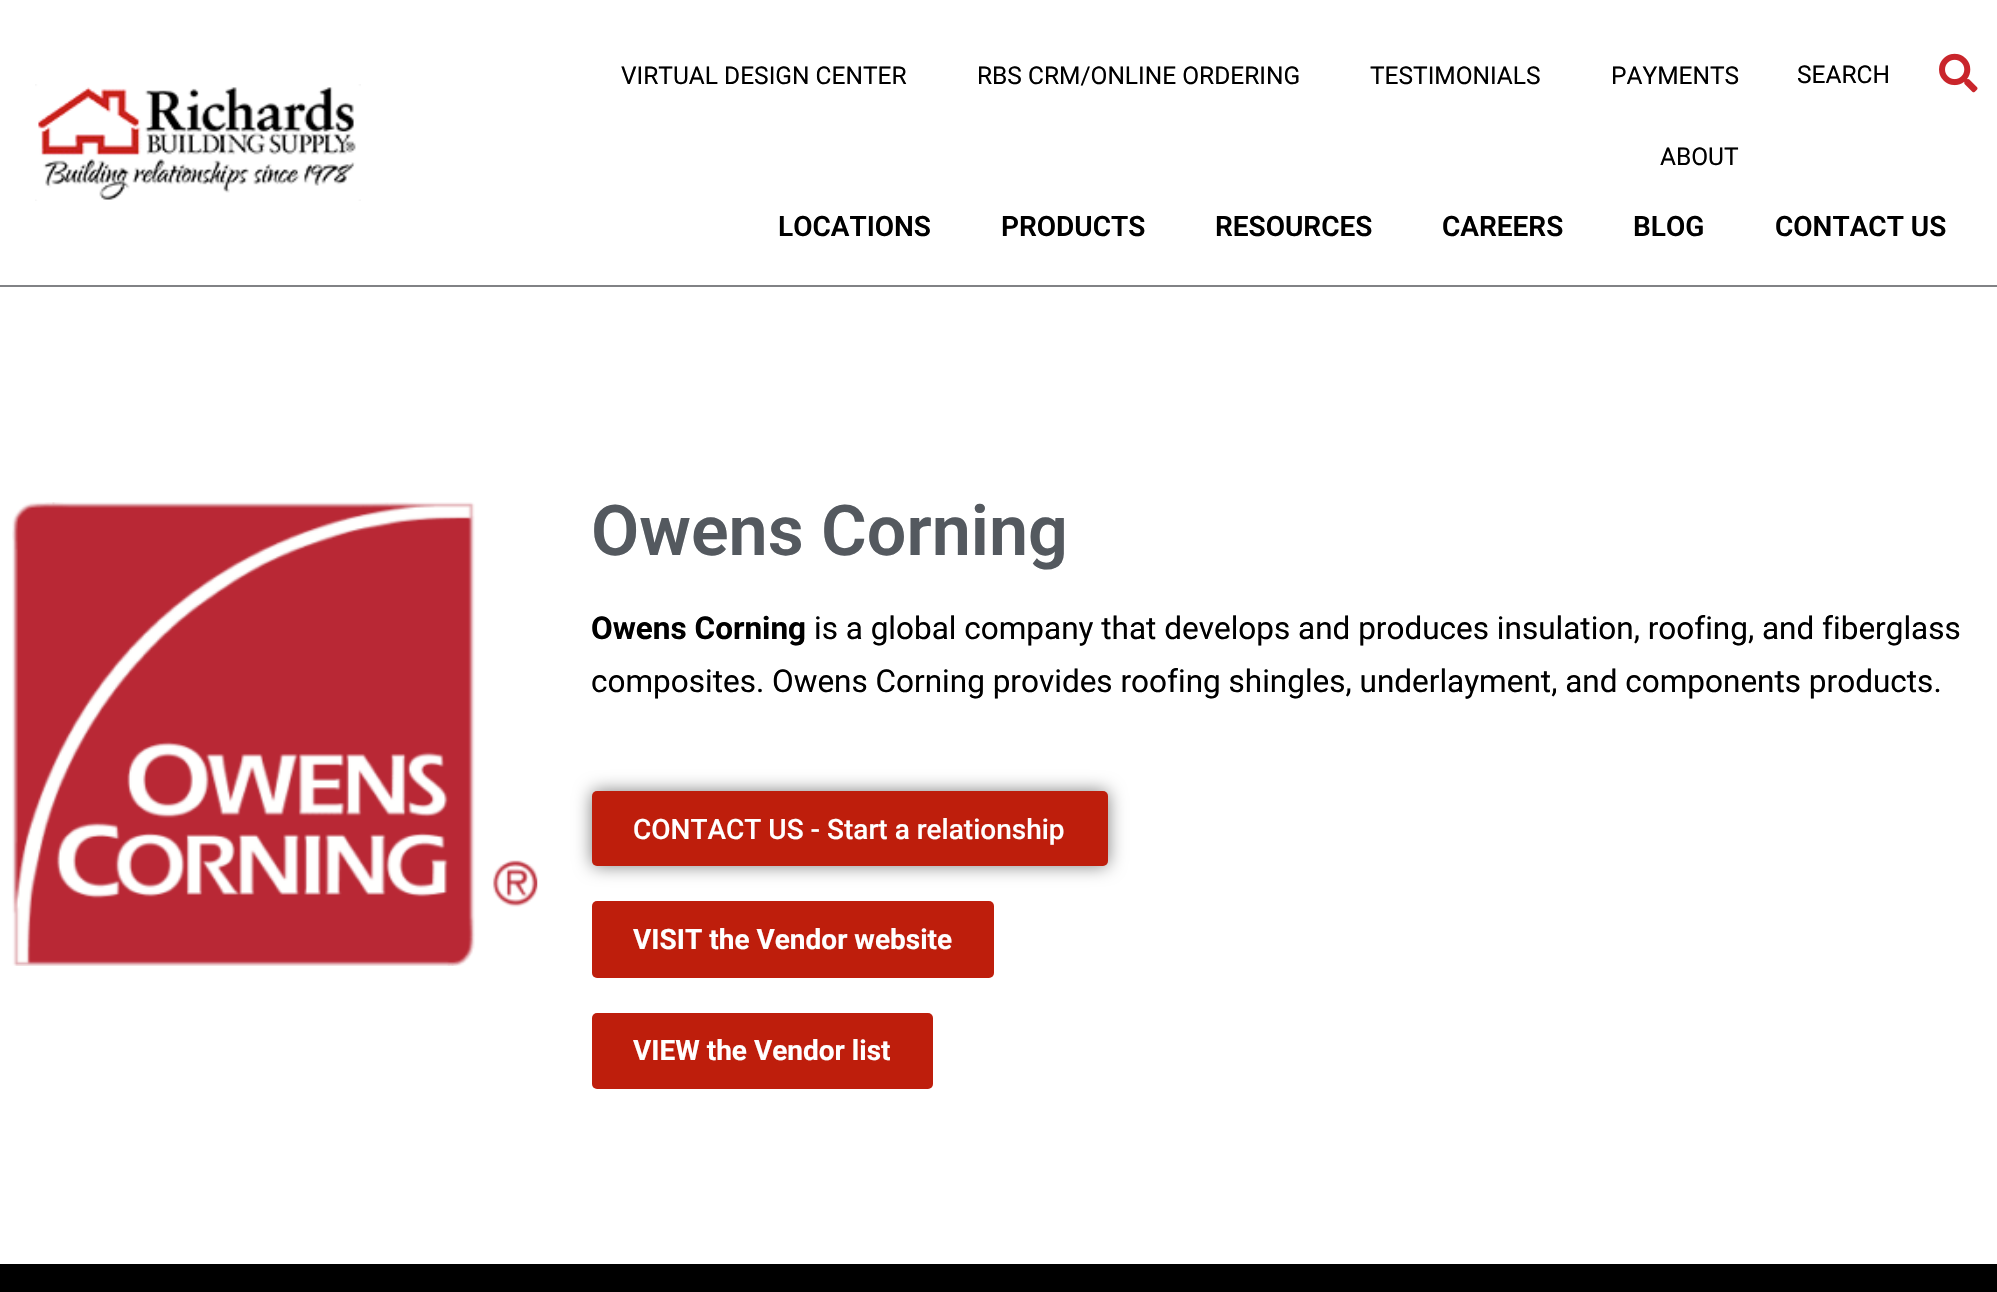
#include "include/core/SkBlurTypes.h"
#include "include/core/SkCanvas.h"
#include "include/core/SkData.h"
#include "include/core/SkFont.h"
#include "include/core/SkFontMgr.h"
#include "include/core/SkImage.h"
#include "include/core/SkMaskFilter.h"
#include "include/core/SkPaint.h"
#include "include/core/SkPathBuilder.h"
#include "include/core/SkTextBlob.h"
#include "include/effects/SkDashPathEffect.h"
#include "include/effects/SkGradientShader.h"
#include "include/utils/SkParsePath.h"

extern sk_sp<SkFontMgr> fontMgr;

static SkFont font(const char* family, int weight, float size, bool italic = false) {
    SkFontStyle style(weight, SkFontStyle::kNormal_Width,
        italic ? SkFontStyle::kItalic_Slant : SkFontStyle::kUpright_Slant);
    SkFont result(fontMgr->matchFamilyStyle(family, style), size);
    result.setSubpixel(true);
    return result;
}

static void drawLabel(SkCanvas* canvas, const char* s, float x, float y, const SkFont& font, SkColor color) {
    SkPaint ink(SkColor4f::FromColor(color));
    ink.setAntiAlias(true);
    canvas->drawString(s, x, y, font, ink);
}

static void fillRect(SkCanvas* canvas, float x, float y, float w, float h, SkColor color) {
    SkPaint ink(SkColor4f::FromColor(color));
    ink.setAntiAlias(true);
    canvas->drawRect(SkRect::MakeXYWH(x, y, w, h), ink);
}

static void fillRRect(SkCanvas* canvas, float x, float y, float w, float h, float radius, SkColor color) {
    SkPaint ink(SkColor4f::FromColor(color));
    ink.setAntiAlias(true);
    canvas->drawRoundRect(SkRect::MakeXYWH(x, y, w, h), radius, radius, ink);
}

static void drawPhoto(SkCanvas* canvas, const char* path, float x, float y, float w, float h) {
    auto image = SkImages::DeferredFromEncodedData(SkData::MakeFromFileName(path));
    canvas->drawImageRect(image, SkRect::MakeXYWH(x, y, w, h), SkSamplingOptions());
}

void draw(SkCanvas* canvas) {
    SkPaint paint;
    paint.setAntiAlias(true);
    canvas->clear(0xFFFFFFFF);
    drawPhoto(canvas, "assets/img1.png", 35, 84, 326, 117);
    SkFont font1 = font("Roboto", 400, 24.5f);
    drawLabel(canvas, "VIRTUAL DESIGN CENTER", 621, 84, font1, 0xFF000000);
    drawLabel(canvas, "RBS CRM/ONLINE ORDERING", 977, 84, font1, 0xFF000000);
    drawLabel(canvas, "TESTIMONIALS", 1370, 84, font1, 0xFF000000);
    drawLabel(canvas, "PAYMENTS", 1611, 84, font1, 0xFF000000);
    drawLabel(canvas, "ABOUT", 1660, 165, font1, 0xFF000000);
    drawLabel(canvas, "SEARCH", 1797, 83, font1, 0xFF000000);
    drawPhoto(canvas, "assets/img2.png", 1939, 53, 39, 40);
    SkFont font2 = font("Roboto", 600, 28);
    drawLabel(canvas, "LOCATIONS", 778, 236, font2, 0xFF000000);
    drawLabel(canvas, "PRODUCTS", 1001, 236, font2, 0xFF000000);
    drawLabel(canvas, "RESOURCES", 1215, 236, font2, 0xFF000000);
    drawLabel(canvas, "CAREERS", 1442, 236, font2, 0xFF000000);
    drawLabel(canvas, "BLOG", 1633, 236, font2, 0xFF000000);
    drawLabel(canvas, "CONTACT US", 1775, 236, font2, 0xFF000000);
    fillRect(canvas, 0, 285, 1997, 2, 0xFF818285);
    drawPhoto(canvas, "assets/img3.png", 12, 502, 526, 464);
    SkFont font3 = font("Roboto", 600, 70);
    drawLabel(canvas, "Owens Corning", 591, 555, font3, 0xFF54595F);
    SkFont font4 = font("Roboto", 700, 31.5f);
    drawLabel(canvas, "Owens Corning", 591, 639, font4, 0xFF000000);
    SkFont font5 = font("Roboto", 400, 31.5f);
    drawLabel(canvas, "is a global company that develops and produces insulation, roofing, and fiberglass", 814, 639, font5, 0xFF000000);
    drawLabel(canvas, "composites. Owens Corning provides roofing shingles, underlayment, and components products.", 591, 692, font5, 0xFF000000);
    paint.setColor(0x80000000);
    paint.setMaskFilter(SkMaskFilter::MakeBlur(kNormal_SkBlurStyle, 9));
    canvas->drawRoundRect(SkRect::MakeXYWH(592, 791, 516, 75), 5, 5, paint);
    paint.setMaskFilter(nullptr);
    fillRRect(canvas, 592, 791, 516, 75, 5, 0xFFBE1E0C);
    SkFont font6 = font("Roboto", 500, 28);
    drawLabel(canvas, "CONTACT US - Start a relationship", 633, 839, font6, 0xFFFFFFFF);
    fillRRect(canvas, 592, 901, 402, 77, 5, 0xFFBE1E0C);
    SkFont font7 = font("Roboto", 700, 28);
    drawLabel(canvas, "VISIT the Vendor website", 633, 949, font7, 0xFFFFFFFF);
    fillRRect(canvas, 592, 1013, 341, 76, 5, 0xFFBE1E0C);
    drawLabel(canvas, "VIEW the Vendor list", 633, 1060, font7, 0xFFFFFFFF);
    fillRect(canvas, 0, 1264, 1997, 28, 0xFF000000);
}
